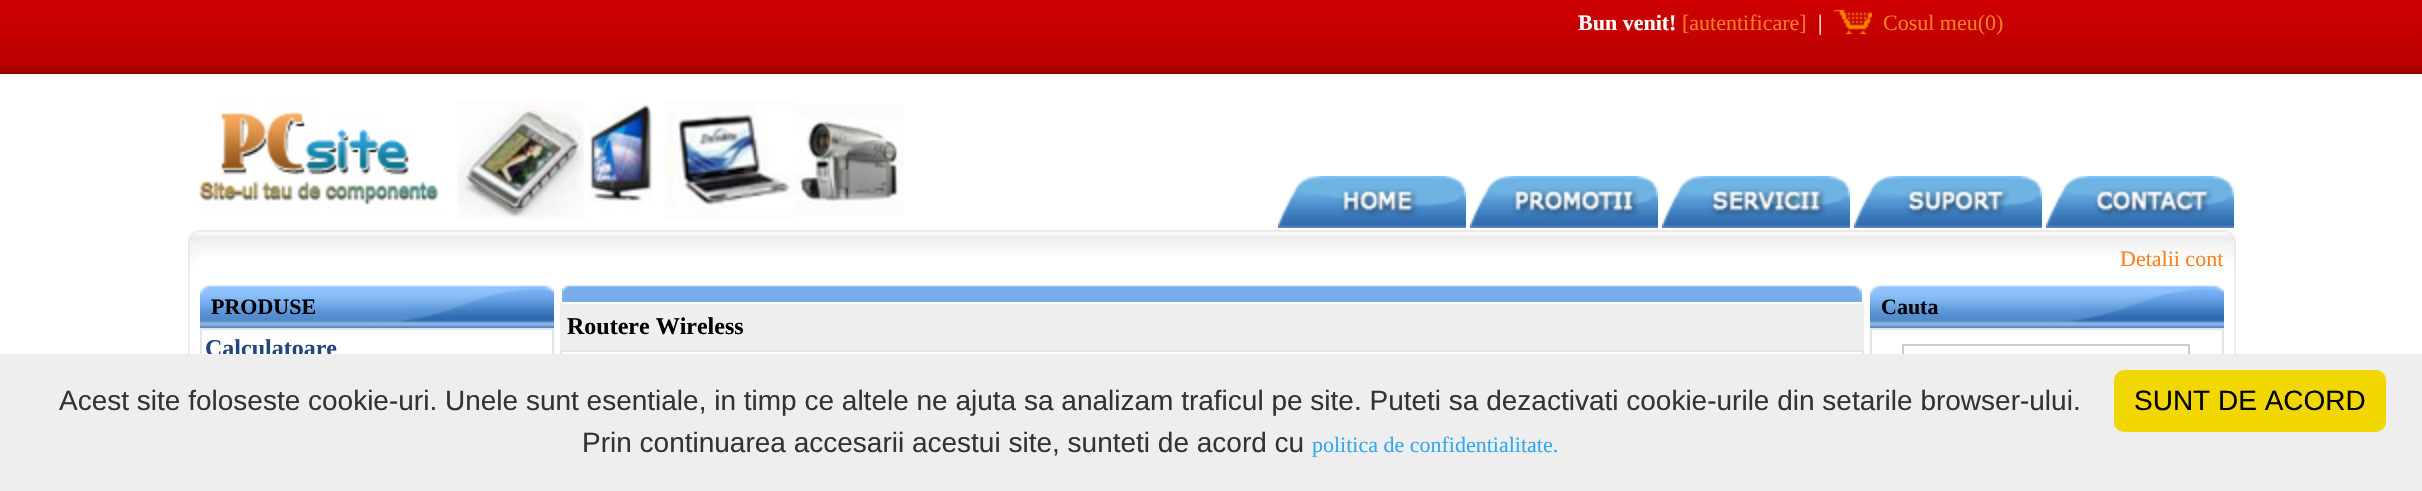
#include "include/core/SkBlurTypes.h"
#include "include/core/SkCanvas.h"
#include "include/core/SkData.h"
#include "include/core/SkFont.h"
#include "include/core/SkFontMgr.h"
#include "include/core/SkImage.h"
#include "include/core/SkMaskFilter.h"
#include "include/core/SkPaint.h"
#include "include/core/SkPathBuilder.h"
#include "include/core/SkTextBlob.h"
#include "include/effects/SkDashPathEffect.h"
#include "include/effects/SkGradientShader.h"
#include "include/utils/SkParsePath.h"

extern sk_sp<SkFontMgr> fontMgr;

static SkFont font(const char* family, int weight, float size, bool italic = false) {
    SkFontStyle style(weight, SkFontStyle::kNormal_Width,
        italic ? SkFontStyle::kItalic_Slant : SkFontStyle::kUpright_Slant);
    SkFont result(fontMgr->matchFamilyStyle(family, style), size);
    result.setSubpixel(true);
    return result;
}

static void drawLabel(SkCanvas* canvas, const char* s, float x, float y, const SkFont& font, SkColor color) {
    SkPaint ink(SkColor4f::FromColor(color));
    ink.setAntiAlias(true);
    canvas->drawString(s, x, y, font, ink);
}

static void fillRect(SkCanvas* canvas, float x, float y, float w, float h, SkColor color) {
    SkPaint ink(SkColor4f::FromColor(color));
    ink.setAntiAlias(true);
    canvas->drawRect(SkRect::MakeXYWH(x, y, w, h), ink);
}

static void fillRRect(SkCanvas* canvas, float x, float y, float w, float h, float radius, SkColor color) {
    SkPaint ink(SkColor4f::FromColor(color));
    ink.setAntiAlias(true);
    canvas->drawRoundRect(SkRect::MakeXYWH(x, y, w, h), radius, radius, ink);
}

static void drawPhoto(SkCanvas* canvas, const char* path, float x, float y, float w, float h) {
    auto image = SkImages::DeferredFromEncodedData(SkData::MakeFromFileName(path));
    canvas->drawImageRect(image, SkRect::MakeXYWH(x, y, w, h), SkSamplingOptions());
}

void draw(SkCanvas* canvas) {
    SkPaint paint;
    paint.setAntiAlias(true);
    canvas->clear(0xFFFFFFFF);
    drawPhoto(canvas, "assets/img1.png", 0, 0, 2422, 74);
    SkFont font1 = font("Liberation Serif", 700, 22);
    drawLabel(canvas, "Bun venit!", 1578, 30, font1, 0xFFFFFFFF);
    SkFont font2 = font("Liberation Serif", 400, 22);
    drawLabel(canvas, "[autentificare]", 1682, 30, font2, 0xFFFF7E20);
    drawLabel(canvas, "|", 1818, 30, font2, 0xFFFFFFFF);
    drawPhoto(canvas, "assets/img2.png", 1834, 10, 38, 24);
    drawLabel(canvas, "Cosul meu(0)", 1883, 30, font2, 0xFFFF7E20);
    drawPhoto(canvas, "assets/img3.png", 199, 100, 705, 120);
    drawPhoto(canvas, "assets/img4.png", 1278, 176, 188, 52);
    drawPhoto(canvas, "assets/img5.png", 1470, 176, 188, 52);
    drawPhoto(canvas, "assets/img6.png", 1662, 176, 188, 52);
    drawPhoto(canvas, "assets/img7.png", 1854, 176, 188, 52);
    drawPhoto(canvas, "assets/img8.png", 2046, 176, 188, 52);
    drawPhoto(canvas, "assets/img9.png", 188, 230, 10, 40);
    drawPhoto(canvas, "assets/img10.png", 198, 230, 2026, 26);
    drawLabel(canvas, "Detalii cont", 2120, 266, font2, 0xFFFF7E20);
    drawPhoto(canvas, "assets/img11.png", 2224, 230, 12, 40);
    fillRect(canvas, 188, 270, 2, 84, 0xFFEFEFEF);
    drawPhoto(canvas, "assets/img12.png", 200, 285, 354, 43);
    drawLabel(canvas, "PRODUSE", 211, 314, font1, 0xFF000000);
    paint.setStroke(true);
    paint.setStrokeWidth(2);
    paint.setColor(0xFFE4E4E4);
    canvas->drawRect(SkRect::MakeXYWH(201, 329, 352, 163), paint);
    SkFont font3 = font("Liberation Serif", 700, 24);
    drawLabel(canvas, "Calculatoare", 205, 356, font3, 0xFF24467F);
    fillRect(canvas, 2234, 270, 2, 84, 0xFFEFEFEF);
    drawPhoto(canvas, "assets/img13.png", 1870, 285, 354, 43);
    drawLabel(canvas, "Cauta", 1881, 314, font1, 0xFF000000);
    canvas->drawRect(SkRect::MakeXYWH(1871, 329, 352, 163), paint);
    paint.setColor(0xFFCCCCCC);
    canvas->drawRect(SkRect::MakeXYWH(1903, 345, 286, 32), paint);
    drawPhoto(canvas, "assets/img14.png", 562, 285, 1300, 17);
    fillRect(canvas, 560, 304, 1304, 46, 0xFFEFEFEF);
    drawLabel(canvas, "Routere Wireless", 567, 334, font3, 0xFF000000);
    paint.setColor(0xFFE4E4E4);
    canvas->drawRect(SkRect::MakeXYWH(561, 351, 1302, 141), paint);
    fillRect(canvas, 0, 354, 2422, 137, 0xFFEEEEEE);
    SkFont font4 = font("Liberation Sans", 400, 28);
    drawLabel(canvas, "Acest site foloseste cookie-uri. Unele sunt esentiale, in timp ce altele ne ajuta sa analizam traficul pe site. Puteti sa dezactivati cookie-urile din setarile browser-ului.", 59, 410, font4, 0xFF333333);
    drawLabel(canvas, "Prin continuarea accesarii acestui site, sunteti de acord cu", 582, 452, font4, 0xFF333333);
    drawLabel(canvas, "politica de confidentialitate.", 1312, 452, font2, 0xFF31A8F0);
    fillRRect(canvas, 2114, 370, 272, 62, 10, 0xFFF1D600);
    drawLabel(canvas, "SUNT DE ACORD", 2134, 410, font4, 0xFF000000);
}
